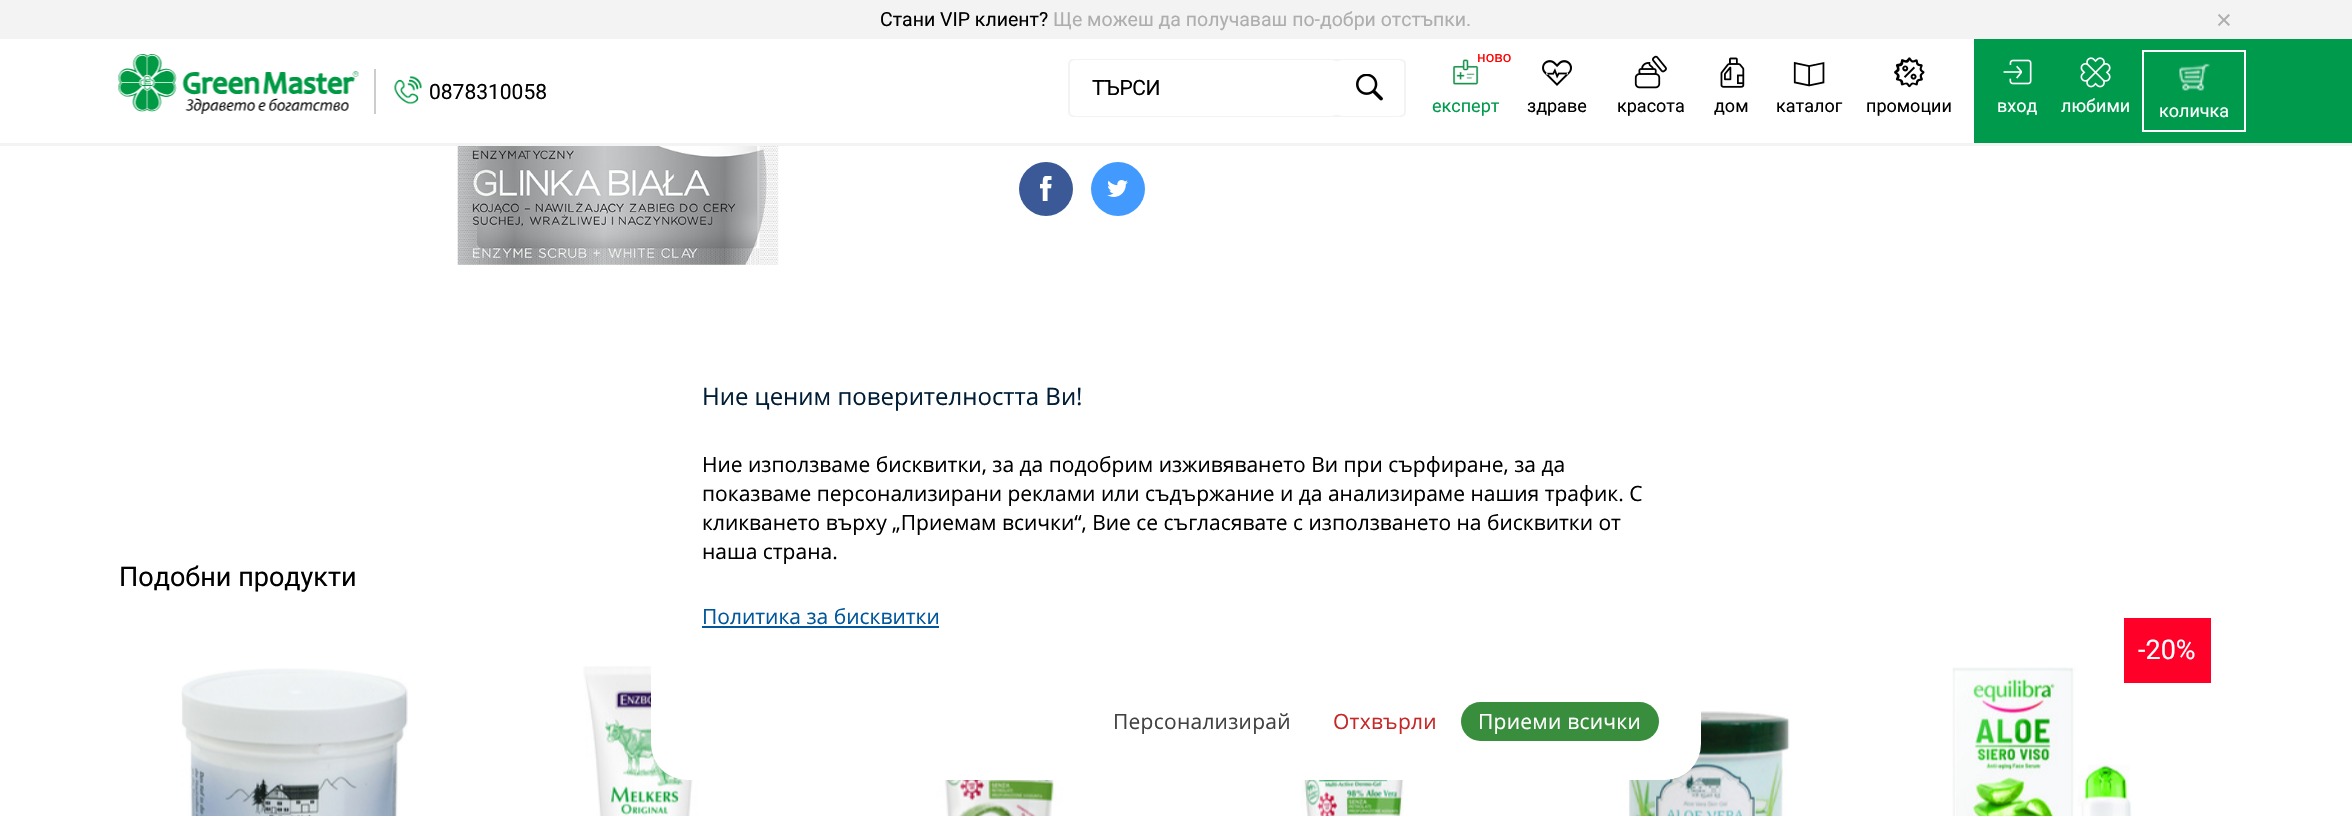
#include "include/core/SkBlurTypes.h"
#include "include/core/SkCanvas.h"
#include "include/core/SkData.h"
#include "include/core/SkFont.h"
#include "include/core/SkFontMgr.h"
#include "include/core/SkImage.h"
#include "include/core/SkMaskFilter.h"
#include "include/core/SkPaint.h"
#include "include/core/SkPathBuilder.h"
#include "include/core/SkTextBlob.h"
#include "include/effects/SkDashPathEffect.h"
#include "include/effects/SkGradientShader.h"
#include "include/utils/SkParsePath.h"

extern sk_sp<SkFontMgr> fontMgr;

static SkFont font(const char* family, int weight, float size, bool italic = false) {
    SkFontStyle style(weight, SkFontStyle::kNormal_Width,
        italic ? SkFontStyle::kItalic_Slant : SkFontStyle::kUpright_Slant);
    SkFont result(fontMgr->matchFamilyStyle(family, style), size);
    result.setSubpixel(true);
    return result;
}

static void drawLabel(SkCanvas* canvas, const char* s, float x, float y, const SkFont& font, SkColor color) {
    SkPaint ink(SkColor4f::FromColor(color));
    ink.setAntiAlias(true);
    canvas->drawString(s, x, y, font, ink);
}

static void drawTracked(SkCanvas* canvas, const char* s, float x, float y, const SkFont& font, const SkPaint& ink, float letter, float word) {
    std::vector<SkGlyphID> glyphs(font.countText(s, strlen(s), SkTextEncoding::kUTF8));
    std::vector<float> xs(glyphs.size());
    font.textToGlyphs(s, strlen(s), SkTextEncoding::kUTF8, glyphs);
    font.getXPos(glyphs, xs, x);
    float extra = 0;
    for (size_t i = 0; i < glyphs.size(); i++) {
        xs[i] += extra;
        extra += letter + word * (glyphs[i] == font.unicharToGlyph(' '));
    }
    canvas->drawTextBlob(SkTextBlob::MakeFromPosHGlyphs(glyphs, xs, y, font), 0, 0, ink);
}

static void fillRect(SkCanvas* canvas, float x, float y, float w, float h, SkColor color) {
    SkPaint ink(SkColor4f::FromColor(color));
    ink.setAntiAlias(true);
    canvas->drawRect(SkRect::MakeXYWH(x, y, w, h), ink);
}

static void fillRRect(SkCanvas* canvas, float x, float y, float w, float h, float radius, SkColor color) {
    SkPaint ink(SkColor4f::FromColor(color));
    ink.setAntiAlias(true);
    canvas->drawRoundRect(SkRect::MakeXYWH(x, y, w, h), radius, radius, ink);
}

static void drawPhoto(SkCanvas* canvas, const char* path, float x, float y, float w, float h) {
    auto image = SkImages::DeferredFromEncodedData(SkData::MakeFromFileName(path));
    canvas->drawImageRect(image, SkRect::MakeXYWH(x, y, w, h), SkSamplingOptions());
}

void draw(SkCanvas* canvas) {
    SkPaint paint;
    paint.setAntiAlias(true);
    canvas->clear(0xFFFFFFFF);
    fillRect(canvas, 1974, 39, 378, 104, 0xFF009A4D);
    fillRect(canvas, 0, 143, 2352, 3, 0xFFF3F3F3);
    fillRect(canvas, 0, 0, 2352, 39, 0xFFF3F3F3);
    SkFont font1 = font("Roboto", 400, 19.5f);
    drawLabel(canvas, "Стани VIP клиент?", 880, 26, font1, 0xFF000000);
    drawLabel(canvas, "Ще можеш да получаваш по-добри отстъпки.", 1053, 26, font1, 0xFFAEAEAE);
    SkFont font2 = font("Liberation Sans", 400, 27);
    drawLabel(canvas, "×", 2216, 29, font2, 0xFFAEAEAE);
    drawPhoto(canvas, "assets/img1.png", 118, 54, 241, 60);
    drawPhoto(canvas, "assets/img2.png", 394, 76, 28, 28);
    fillRect(canvas, 374, 69, 2, 45, 0xFFCCCCCC);
    SkFont font3 = font("Roboto", 400, 21);
    drawLabel(canvas, "0878310058", 429, 99, font3, 0xFF000000);
    paint.setStroke(true);
    paint.setStrokeWidth(2);
    paint.setColor(0xFFF3F3F3);
    canvas->drawRoundRect(SkRect::MakeXYWH(1069, 60, 336, 56), 4, 4, paint);
    fillRRect(canvas, 1070, 60, 267, 56, 5, 0xFFFFFFFF);
    paint.setStroke(false);
    paint.setColor(0xFF000000);
    drawTracked(canvas, "ТЪРСИ", 1092, 95, font3, paint, -0.5f, 0);
    fillRRect(canvas, 1337, 60, 67, 56, 5, 0xFFFFFFFF);
    drawPhoto(canvas, "assets/img3.png", 1356, 74, 27, 27);
    drawPhoto(canvas, "assets/img4.png", 1453, 59, 26, 26);
    SkFont font4 = font("Roboto", 400, 15);
    drawLabel(canvas, "ново", 1477, 62, font4, 0xFFFF0000);
    SkFont font5 = font("Roboto", 400, 18);
    drawLabel(canvas, "експерт", 1432, 112, font5, 0xFF009A4D);
    drawPhoto(canvas, "assets/img5.png", 1542, 60, 30, 26);
    drawLabel(canvas, "здраве", 1527, 112, font5, 0xFF000000);
    drawPhoto(canvas, "assets/img6.png", 1634, 55, 33, 34);
    drawLabel(canvas, "красота", 1617, 112, font5, 0xFF000000);
    drawPhoto(canvas, "assets/img7.png", 1720, 57, 25, 31);
    drawLabel(canvas, "дом", 1714, 112, font5, 0xFF000000);
    drawPhoto(canvas, "assets/img8.png", 1793, 62, 32, 25);
    drawLabel(canvas, "каталог", 1776, 112, font5, 0xFF000000);
    drawPhoto(canvas, "assets/img9.png", 1894, 57, 31, 31);
    drawLabel(canvas, "промоции", 1866, 112, font5, 0xFF000000);
    drawPhoto(canvas, "assets/img10.png", 2003, 59, 29, 26);
    drawLabel(canvas, "вход", 1997, 112, font5, 0xFFFFFFFF);
    drawPhoto(canvas, "assets/img11.png", 2080, 57, 31, 31);
    drawLabel(canvas, "любими", 2061, 112, font5, 0xFFFFFFFF);
    paint.setStroke(true);
    paint.setColor(0xFFFEFEFE);
    canvas->drawRect(SkRect::MakeXYWH(2143, 51, 102, 80), paint);
    drawPhoto(canvas, "assets/img12.png", 2179, 63, 31, 28);
    drawLabel(canvas, "количка", 2159, 117, font5, 0xFFFFFFFF);
    drawPhoto(canvas, "assets/img13.png", 457, 146, 322, 119);
    paint.setStroke(false);
    paint.setColor(0xFF3B5996);
    canvas->drawCircle(1046, 189, 27, paint);
    drawPhoto(canvas, "assets/img14.png", 1040, 176, 12, 25);
    paint.setColor(0xFF429AFF);
    canvas->drawCircle(1118, 189, 27, paint);
    drawPhoto(canvas, "assets/img15.png", 1107, 180, 21, 17);
    SkFont font6 = font("Roboto", 400, 27);
    drawLabel(canvas, "Подобни продукти", 119, 586, font6, 0xFF000000);
    drawPhoto(canvas, "assets/img16.png", 1952, 667, 180, 149);
    fillRect(canvas, 2124, 618, 87, 65, 0xFFFF0029);
    drawLabel(canvas, "-20%", 2138, 659, font6, 0xFFFFFFFF);
    drawPhoto(canvas, "assets/img17.png", 181, 668, 227, 148);
    drawPhoto(canvas, "assets/img18.png", 583, 666, 123, 150);
    drawPhoto(canvas, "assets/img19.png", 929, 780, 141, 36);
    drawPhoto(canvas, "assets/img20.png", 1292, 780, 125, 36);
    drawPhoto(canvas, "assets/img21.png", 1621, 711, 169, 105);
    fillRRect(canvas, 651, 327, 1050, 453, 36, 0xFFFFFFFF);
    SkFont font7 = font("Open Sans", 400, 24);
    drawLabel(canvas, "Ние ценим поверителността Ви!", 702, 405, font7, 0xFF001D35);
    SkFont font8 = font("Open Sans", 400, 21);
    drawLabel(canvas, "Ние използваме бисквитки, за да подобрим изживяването Ви при сърфиране, за да", 702, 472, font8, 0xFF000000);
    drawLabel(canvas, "показваме персонализирани реклами или съдържание и да анализираме нашия трафик. С", 702, 501, font8, 0xFF000000);
    drawLabel(canvas, "кликването върху „Приемам всички“, Вие се съгласявате с използването на бисквитки от", 702, 530, font8, 0xFF000000);
    drawLabel(canvas, "наша страна.", 702, 559, font8, 0xFF000000);
    drawLabel(canvas, "Политика за бисквитки", 702, 624, font8, 0xFF01579B);
    fillRect(canvas, 702, 626, 237, 2, 0xFF01579B);
    paint.setColor(0xFF424242);
    drawTracked(canvas, "Персонализирай", 1113, 729, font8, paint, 0.25f, 0);
    paint.setColor(0xFFC62828);
    drawTracked(canvas, "Отхвърли", 1333, 729, font8, paint, 0.25f, 0);
    fillRRect(canvas, 1461, 702, 198, 39, 19.5f, 0xFF388E3C);
    paint.setColor(0xFFFFFFFF);
    drawTracked(canvas, "Приеми всички", 1478, 729, font8, paint, 0.25f, 0);
}
